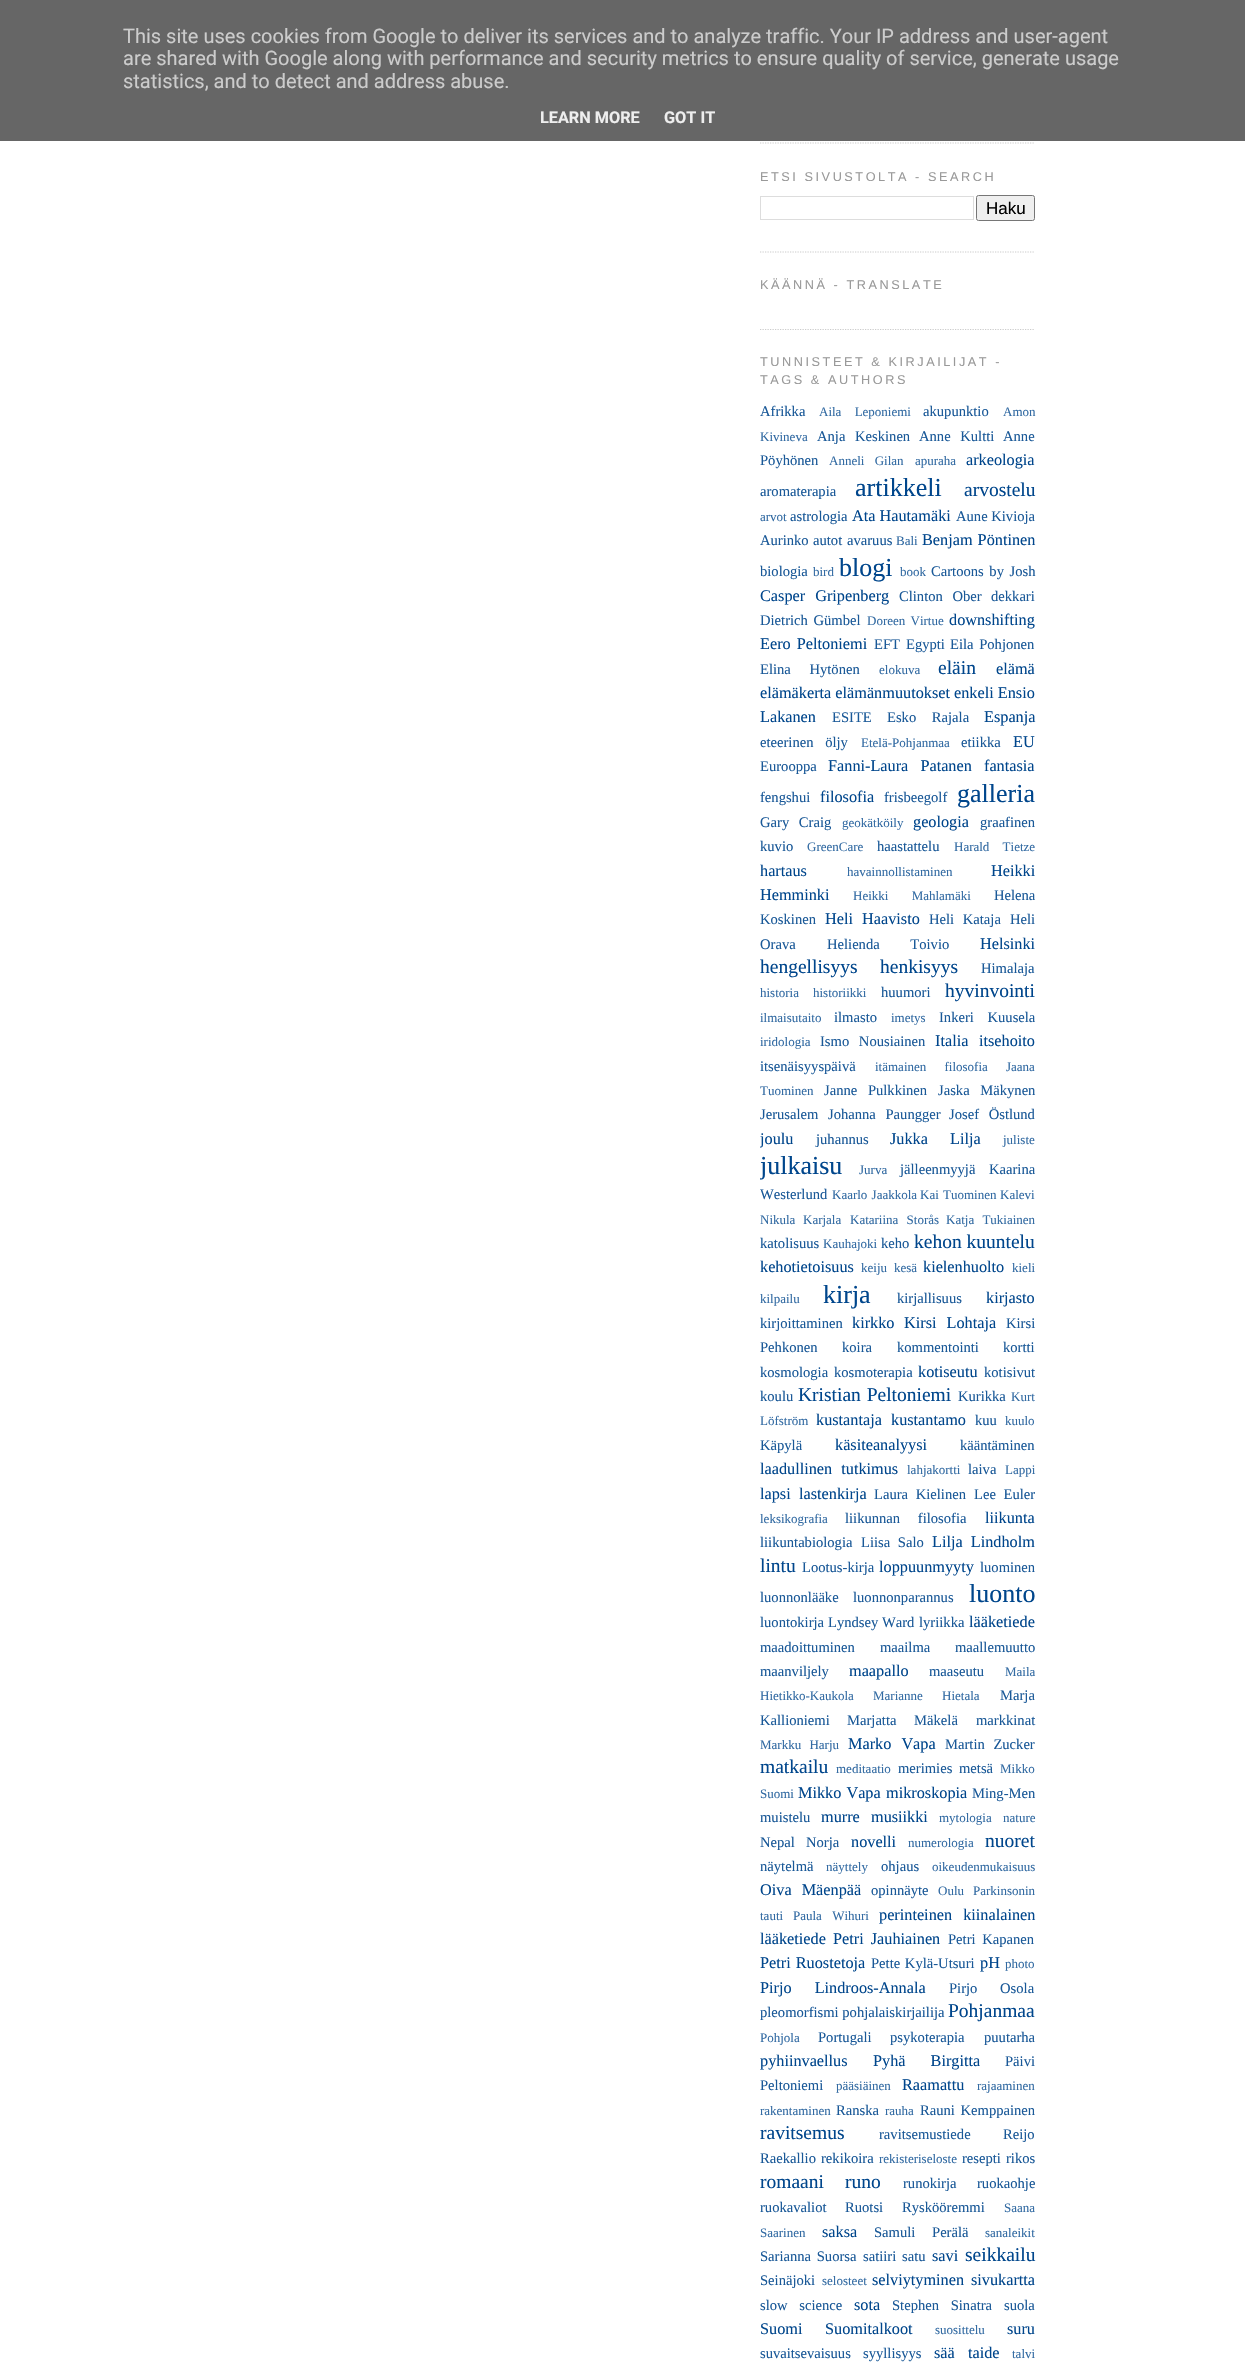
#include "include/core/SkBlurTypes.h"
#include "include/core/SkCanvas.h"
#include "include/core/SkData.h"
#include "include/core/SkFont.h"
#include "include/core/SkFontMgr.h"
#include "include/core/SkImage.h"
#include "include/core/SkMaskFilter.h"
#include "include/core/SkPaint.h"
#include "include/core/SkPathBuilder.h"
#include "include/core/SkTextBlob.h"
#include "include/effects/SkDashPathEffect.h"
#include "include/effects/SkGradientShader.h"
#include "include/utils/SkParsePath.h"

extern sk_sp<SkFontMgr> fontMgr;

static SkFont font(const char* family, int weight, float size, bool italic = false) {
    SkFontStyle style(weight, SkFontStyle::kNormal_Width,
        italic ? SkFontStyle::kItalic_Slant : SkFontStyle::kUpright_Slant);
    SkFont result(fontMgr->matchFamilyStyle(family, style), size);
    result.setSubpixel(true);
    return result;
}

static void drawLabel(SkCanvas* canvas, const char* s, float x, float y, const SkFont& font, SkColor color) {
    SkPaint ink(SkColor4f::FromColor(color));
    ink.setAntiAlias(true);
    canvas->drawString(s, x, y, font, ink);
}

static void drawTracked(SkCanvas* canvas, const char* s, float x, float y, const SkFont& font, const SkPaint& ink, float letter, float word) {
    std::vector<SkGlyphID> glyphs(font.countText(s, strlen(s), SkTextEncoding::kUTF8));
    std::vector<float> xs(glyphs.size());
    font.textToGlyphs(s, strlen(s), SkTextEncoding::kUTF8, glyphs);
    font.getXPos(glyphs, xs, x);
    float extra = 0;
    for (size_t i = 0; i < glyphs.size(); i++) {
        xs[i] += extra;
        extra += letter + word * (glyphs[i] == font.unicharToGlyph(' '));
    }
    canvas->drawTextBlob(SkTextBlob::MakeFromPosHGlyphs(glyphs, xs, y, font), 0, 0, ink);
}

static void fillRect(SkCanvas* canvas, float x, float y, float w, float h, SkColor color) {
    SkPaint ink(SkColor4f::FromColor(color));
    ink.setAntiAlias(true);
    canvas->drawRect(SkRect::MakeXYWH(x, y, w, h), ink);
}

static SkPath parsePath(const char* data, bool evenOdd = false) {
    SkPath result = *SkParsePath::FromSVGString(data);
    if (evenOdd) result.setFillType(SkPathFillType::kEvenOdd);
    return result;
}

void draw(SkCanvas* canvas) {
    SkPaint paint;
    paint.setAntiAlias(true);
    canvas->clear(0xFFFFFFFF);
    fillRect(canvas, 0, 0, 1245, 141, 0xFF666666);
    SkFont font1 = font("Roboto", 400, 20);
    drawLabel(canvas, "This site uses cookies from Google to deliver its services and to analyze traffic. Your IP address and user-agent", 123, 43, font1, 0xFFCCCCCC);
    drawLabel(canvas, "are shared with Google along with performance and security metrics to ensure quality of service, generate usage", 123, 65, font1, 0xFFCCCCCC);
    drawLabel(canvas, "statistics, and to detect and address abuse.", 123, 88, font1, 0xFFCCCCCC);
    SkFont font2 = font("Roboto", 700, 16.25f);
    drawLabel(canvas, "LEARN MORE", 540, 123, font2, 0xFFEEEEEE);
    drawLabel(canvas, "GOT IT", 664, 123, font2, 0xFFEEEEEE);
    paint.setStroke(true);
    paint.setStrokeWidth(1.2f);
    paint.setColor(0xFFCCCCCC);
    paint.setPathEffect(SkDashPathEffect::Make({{1.25f, 1.25f}}, 0));
    canvas->drawPath(parsePath("M760 143H1035"), paint);
    paint.setPathEffect(nullptr);
    paint.setPathEffect(SkDashPathEffect::Make({{1.25f, 1.25f}}, 0));
    canvas->drawPath(parsePath("M760 252H1035"), paint);
    paint.setPathEffect(nullptr);
    SkFont font3 = font("Liberation Sans", 400, 12.7f);
    paint.setStroke(false);
    paint.setColor(0xFF999999);
    drawTracked(canvas, "ETSI SIVUSTOLTA - SEARCH", 760, 181, font3, paint, 2.55f, 0);
    paint.setStroke(true);
    paint.setStrokeWidth(1);
    paint.setColor(0xFFDDDDDD);
    canvas->drawRect(SkRect::MakeXYWH(760.5f, 196.5f, 213, 23), paint);
    paint.setStroke(false);
    paint.setColor(0xFFEFEFEF);
    canvas->drawRoundRect(SkRect::MakeXYWH(976.5f, 195.5f, 58, 25), 2, 2, paint);
    paint.setStroke(true);
    paint.setColor(0xFF767676);
    canvas->drawRoundRect(SkRect::MakeXYWH(976.5f, 195.5f, 58, 25), 2, 2, paint);
    SkFont font4 = font("Liberation Sans", 400, 17);
    drawLabel(canvas, "Haku", 986, 214, font4, 0xFF000000);
    paint.setStrokeWidth(1.2f);
    paint.setColor(0xFFCCCCCC);
    paint.setPathEffect(SkDashPathEffect::Make({{1.25f, 1.25f}}, 0));
    canvas->drawPath(parsePath("M760 329.5H1035"), paint);
    paint.setPathEffect(nullptr);
    paint.setStroke(false);
    paint.setColor(0xFF999999);
    drawTracked(canvas, "KÄÄNNÄ - TRANSLATE", 760, 289, font3, paint, 2.55f, 0);
    drawTracked(canvas, "TUNNISTEET & KIRJAILIJAT -", 760, 366, font3, paint, 2.55f, 0);
    drawTracked(canvas, "TAGS & AUTHORS", 760, 384, font3, paint, 2.55f, 0);
    SkFont font5 = font("Liberation Serif", 400, 14.6f);
    drawLabel(canvas, "Afrikka", 760, 416, font5, 0xFF1A5998);
    SkFont font6 = font("Liberation Serif", 400, 13);
    paint.setColor(0xFF336BA3);
    drawTracked(canvas, "Aila Leponiemi", 819, 416, font6, paint, 0, 10);
    drawLabel(canvas, "akupunktio", 923, 416, font5, 0xFF1A5998);
    drawLabel(canvas, "Amon", 1003, 416, font6, 0xFF336BA3);
    drawLabel(canvas, "Kivineva", 760, 441, font6, 0xFF336BA3);
    paint.setColor(0xFF1A5998);
    drawTracked(canvas, "Anja Keskinen", 817, 441, font5, paint, 0, 6);
    drawTracked(canvas, "Anne Kultti", 919, 441, font5, paint, 0, 6);
    drawLabel(canvas, "Anne", 1003, 441, font5, 0xFF1A5998);
    drawLabel(canvas, "Pöyhönen", 760, 465, font5, 0xFF1A5998);
    paint.setColor(0xFF336BA3);
    drawTracked(canvas, "Anneli Gilan", 829, 465, font6, paint, 0, 7);
    drawLabel(canvas, "apuraha", 915, 465, font6, 0xFF336BA3);
    SkFont font7 = font("Liberation Serif", 400, 16.25f);
    drawLabel(canvas, "arkeologia", 966, 465, font7, 0xFF00468C);
    drawLabel(canvas, "aromaterapia", 760, 496, font5, 0xFF1A5998);
    SkFont font8 = font("Liberation Serif", 400, 26);
    drawLabel(canvas, "artikkeli", 855, 496, font8, 0xFF00468C);
    SkFont font9 = font("Liberation Serif", 400, 19.5f);
    drawLabel(canvas, "arvostelu", 964, 496, font9, 0xFF00468C);
    drawLabel(canvas, "arvot", 760, 521, font6, 0xFF336BA3);
    drawLabel(canvas, "astrologia", 790, 521, font5, 0xFF1A5998);
    drawLabel(canvas, "Ata Hautamäki", 852, 521, font7, 0xFF00468C);
    drawLabel(canvas, "Aune Kivioja", 956, 521, font5, 0xFF1A5998);
    drawLabel(canvas, "Aurinko", 760, 545, font5, 0xFF1A5998);
    drawLabel(canvas, "autot", 813, 545, font5, 0xFF1A5998);
    drawLabel(canvas, "avaruus", 847, 545, font5, 0xFF1A5998);
    drawLabel(canvas, "Bali", 896, 545, font6, 0xFF336BA3);
    paint.setColor(0xFF00468C);
    drawTracked(canvas, "Benjam Pöntinen", 922, 545, font7, paint, 0, 1);
    drawLabel(canvas, "biologia", 760, 576, font5, 0xFF1A5998);
    drawLabel(canvas, "bird", 813, 576, font6, 0xFF336BA3);
    drawLabel(canvas, "blogi", 839, 576, font8, 0xFF00468C);
    drawLabel(canvas, "book", 900, 576, font6, 0xFF336BA3);
    paint.setColor(0xFF1A5998);
    drawTracked(canvas, "Cartoons by Josh", 931, 576, font5, paint, 0, 2);
    paint.setColor(0xFF00468C);
    drawTracked(canvas, "Casper Gripenberg", 760, 601, font7, paint, 0, 6);
    paint.setColor(0xFF1A5998);
    drawTracked(canvas, "Clinton Ober", 899, 601, font5, paint, 0, 6);
    drawLabel(canvas, "dekkari", 991, 601, font5, 0xFF1A5998);
    drawTracked(canvas, "Dietrich Gümbel", 760, 625, font5, paint, 0, 2);
    paint.setColor(0xFF336BA3);
    drawTracked(canvas, "Doreen Virtue", 867, 625, font6, paint, 0, 2);
    drawLabel(canvas, "downshifting", 949, 625, font7, 0xFF00468C);
    paint.setColor(0xFF00468C);
    drawTracked(canvas, "Eero Peltoniemi", 760, 649, font7, paint, 0, 2);
    drawLabel(canvas, "EFT", 874, 649, font5, 0xFF1A5998);
    drawLabel(canvas, "Egypti", 906, 649, font5, 0xFF1A5998);
    paint.setColor(0xFF1A5998);
    drawTracked(canvas, "Eila Pohjonen", 950, 649, font5, paint, 0, 2);
    drawTracked(canvas, "Elina Hytönen", 760, 674, font5, paint, 0, 15);
    drawLabel(canvas, "elokuva", 879, 674, font6, 0xFF336BA3);
    drawLabel(canvas, "eläin", 938, 674, font9, 0xFF00468C);
    drawLabel(canvas, "elämä", 996, 674, font7, 0xFF00468C);
    drawLabel(canvas, "elämäkerta elämänmuutokset enkeli Ensio", 760, 698, font7, 0xFF00468C);
    drawLabel(canvas, "Lakanen", 760, 722, font7, 0xFF00468C);
    drawLabel(canvas, "ESITE", 832, 722, font5, 0xFF1A5998);
    drawTracked(canvas, "Esko Rajala", 887, 722, font5, paint, 0, 12);
    drawLabel(canvas, "Espanja", 984, 722, font7, 0xFF00468C);
    drawTracked(canvas, "eteerinen öljy", 760, 747, font5, paint, 0, 8);
    drawLabel(canvas, "Etelä-Pohjanmaa", 861, 747, font6, 0xFF336BA3);
    drawLabel(canvas, "etiikka", 961, 747, font5, 0xFF1A5998);
    drawLabel(canvas, "EU", 1013, 747, font7, 0xFF00468C);
    drawLabel(canvas, "Eurooppa", 760, 771, font5, 0xFF1A5998);
    paint.setColor(0xFF00468C);
    drawTracked(canvas, "Fanni-Laura Patanen", 828, 771, font7, paint, 0, 8);
    drawLabel(canvas, "fantasia", 984, 771, font7, 0xFF00468C);
    drawLabel(canvas, "fengshui", 760, 802, font5, 0xFF1A5998);
    drawLabel(canvas, "filosofia", 820, 802, font7, 0xFF00468C);
    drawLabel(canvas, "frisbeegolf", 884, 802, font5, 0xFF1A5998);
    drawLabel(canvas, "galleria", 957, 802, font8, 0xFF00468C);
    paint.setColor(0xFF1A5998);
    drawTracked(canvas, "Gary Craig", 760, 827, font5, paint, 0, 6);
    drawLabel(canvas, "geokätköily", 842, 827, font6, 0xFF336BA3);
    drawLabel(canvas, "geologia", 913, 827, font7, 0xFF00468C);
    drawLabel(canvas, "graafinen", 980, 827, font5, 0xFF1A5998);
    drawLabel(canvas, "kuvio", 760, 851, font5, 0xFF1A5998);
    drawLabel(canvas, "GreenCare", 807, 851, font6, 0xFF336BA3);
    drawLabel(canvas, "haastattelu", 877, 851, font5, 0xFF1A5998);
    paint.setColor(0xFF336BA3);
    drawTracked(canvas, "Harald Tietze", 954, 851, font6, paint, 0, 10);
    drawLabel(canvas, "hartaus", 760, 876, font7, 0xFF00468C);
    drawLabel(canvas, "havainnollistaminen", 847, 876, font6, 0xFF336BA3);
    drawLabel(canvas, "Heikki", 991, 876, font7, 0xFF00468C);
    drawLabel(canvas, "Hemminki", 760, 900, font7, 0xFF00468C);
    drawTracked(canvas, "Heikki Mahlamäki", 853, 900, font6, paint, 0, 20);
    drawLabel(canvas, "Helena", 994, 900, font5, 0xFF1A5998);
    drawLabel(canvas, "Koskinen", 760, 924, font5, 0xFF1A5998);
    paint.setColor(0xFF00468C);
    drawTracked(canvas, "Heli Haavisto", 825, 924, font7, paint, 0, 5);
    paint.setColor(0xFF1A5998);
    drawTracked(canvas, "Heli Kataja", 929, 924, font5, paint, 0, 5);
    drawLabel(canvas, "Heli", 1010, 924, font5, 0xFF1A5998);
    drawLabel(canvas, "Orava", 760, 949, font5, 0xFF1A5998);
    drawTracked(canvas, "Helienda Toivio", 827, 949, font5, paint, 0, 27);
    drawLabel(canvas, "Helsinki", 980, 949, font7, 0xFF00468C);
    drawLabel(canvas, "hengellisyys", 760, 973, font9, 0xFF00468C);
    drawLabel(canvas, "henkisyys", 880, 973, font9, 0xFF00468C);
    drawLabel(canvas, "Himalaja", 981, 973, font5, 0xFF1A5998);
    drawLabel(canvas, "historia", 760, 997, font6, 0xFF336BA3);
    drawLabel(canvas, "historiikki", 813, 997, font6, 0xFF336BA3);
    drawLabel(canvas, "huumori", 881, 997, font5, 0xFF1A5998);
    drawLabel(canvas, "hyvinvointi", 945, 997, font9, 0xFF00468C);
    drawLabel(canvas, "ilmaisutaito", 760, 1022, font6, 0xFF336BA3);
    drawLabel(canvas, "ilmasto", 834, 1022, font5, 0xFF1A5998);
    drawLabel(canvas, "imetys", 891, 1022, font6, 0xFF336BA3);
    drawTracked(canvas, "Inkeri Kuusela", 939, 1022, font5, paint, 0, 10);
    drawLabel(canvas, "iridologia", 760, 1046, font6, 0xFF336BA3);
    drawTracked(canvas, "Ismo Nousiainen", 820, 1046, font5, paint, 0, 6);
    drawLabel(canvas, "Italia", 935, 1046, font7, 0xFF00468C);
    drawLabel(canvas, "itsehoito", 979, 1046, font7, 0xFF00468C);
    drawLabel(canvas, "itsenäisyyspäivä", 760, 1071, font5, 0xFF1A5998);
    paint.setColor(0xFF336BA3);
    drawTracked(canvas, "itämainen filosofia", 875, 1071, font6, paint, 0, 15);
    drawLabel(canvas, "Jaana", 1006, 1071, font6, 0xFF336BA3);
    drawLabel(canvas, "Tuominen", 760, 1095, font6, 0xFF336BA3);
    paint.setColor(0xFF1A5998);
    drawTracked(canvas, "Janne Pulkkinen", 824, 1095, font5, paint, 0, 7);
    drawTracked(canvas, "Jaska Mäkynen", 938, 1095, font5, paint, 0, 7);
    drawLabel(canvas, "Jerusalem", 760, 1119, font5, 0xFF1A5998);
    drawTracked(canvas, "Johanna Paungger", 828, 1119, font5, paint, 0, 6);
    drawTracked(canvas, "Josef Östlund", 949, 1119, font5, paint, 0, 6);
    canvas->save();
    canvas->clipRect(SkRect::MakeXYWH(760, 0, 275, 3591));
    drawLabel(canvas, "joulu", 760, 1144, font7, 0xFF00468C);
    canvas->restore();
    drawLabel(canvas, "juhannus", 816, 1144, font5, 0xFF1A5998);
    paint.setColor(0xFF00468C);
    drawTracked(canvas, "Jukka Lilja", 890, 1144, font7, paint, 0, 18);
    drawLabel(canvas, "juliste", 1003, 1144, font6, 0xFF336BA3);
    canvas->save();
    canvas->clipRect(SkRect::MakeXYWH(760, 0, 275, 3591));
    drawLabel(canvas, "julkaisu", 760, 1174, font8, 0xFF00468C);
    canvas->restore();
    drawLabel(canvas, "Jurva", 859, 1174, font6, 0xFF336BA3);
    drawLabel(canvas, "jälleenmyyjä", 900, 1174, font5, 0xFF1A5998);
    drawLabel(canvas, "Kaarina", 989, 1174, font5, 0xFF1A5998);
    drawLabel(canvas, "Westerlund", 760, 1199, font5, 0xFF1A5998);
    paint.setColor(0xFF336BA3);
    drawTracked(canvas, "Kaarlo Jaakkola", 832, 1199, font6, paint, 0, 1);
    drawTracked(canvas, "Kai Tuominen", 920, 1199, font6, paint, 0, 1);
    drawLabel(canvas, "Kalevi", 1000, 1199, font6, 0xFF336BA3);
    drawLabel(canvas, "Nikula", 760, 1224, font6, 0xFF336BA3);
    drawLabel(canvas, "Karjala", 803, 1224, font6, 0xFF336BA3);
    drawTracked(canvas, "Katariina Storås", 850, 1224, font6, paint, 0, 5);
    drawTracked(canvas, "Katja Tukiainen", 946, 1224, font6, paint, 0, 5);
    drawLabel(canvas, "katolisuus", 760, 1248, font5, 0xFF1A5998);
    drawLabel(canvas, "Kauhajoki", 823, 1248, font6, 0xFF336BA3);
    drawLabel(canvas, "keho", 881, 1248, font5, 0xFF1A5998);
    drawLabel(canvas, "kehon kuuntelu", 914, 1248, font9, 0xFF00468C);
    drawLabel(canvas, "kehotietoisuus", 760, 1272, font7, 0xFF00468C);
    drawLabel(canvas, "keiju", 861, 1272, font6, 0xFF336BA3);
    drawLabel(canvas, "kesä", 894, 1272, font6, 0xFF336BA3);
    drawLabel(canvas, "kielenhuolto", 923, 1272, font7, 0xFF00468C);
    drawLabel(canvas, "kieli", 1012, 1272, font6, 0xFF336BA3);
    drawLabel(canvas, "kilpailu", 760, 1303, font6, 0xFF336BA3);
    drawLabel(canvas, "kirja", 823, 1303, font8, 0xFF00468C);
    drawLabel(canvas, "kirjallisuus", 897, 1303, font5, 0xFF1A5998);
    drawLabel(canvas, "kirjasto", 986, 1303, font7, 0xFF00468C);
    drawLabel(canvas, "kirjoittaminen", 760, 1328, font5, 0xFF1A5998);
    drawLabel(canvas, "kirkko", 852, 1328, font7, 0xFF00468C);
    paint.setColor(0xFF00468C);
    drawTracked(canvas, "Kirsi Lohtaja", 904, 1328, font7, paint, 0, 6);
    drawLabel(canvas, "Kirsi", 1006, 1328, font5, 0xFF1A5998);
    drawLabel(canvas, "Pehkonen", 760, 1352, font5, 0xFF1A5998);
    drawLabel(canvas, "koira", 842, 1352, font5, 0xFF1A5998);
    drawLabel(canvas, "kommentointi", 897, 1352, font5, 0xFF1A5998);
    drawLabel(canvas, "kortti", 1003, 1352, font5, 0xFF1A5998);
    drawLabel(canvas, "kosmologia", 760, 1377, font5, 0xFF1A5998);
    drawLabel(canvas, "kosmoterapia", 834, 1377, font5, 0xFF1A5998);
    drawLabel(canvas, "kotiseutu", 918, 1377, font7, 0xFF00468C);
    drawLabel(canvas, "kotisivut", 984, 1377, font5, 0xFF1A5998);
    drawLabel(canvas, "koulu", 760, 1401, font5, 0xFF1A5998);
    drawTracked(canvas, "Kristian Peltoniemi", 798, 1401, font9, paint, 0, 1);
    drawLabel(canvas, "Kurikka", 958, 1401, font5, 0xFF1A5998);
    drawLabel(canvas, "Kurt", 1011, 1401, font6, 0xFF336BA3);
    drawLabel(canvas, "Löfström", 760, 1425, font6, 0xFF336BA3);
    drawLabel(canvas, "kustantaja", 816, 1425, font7, 0xFF00468C);
    drawLabel(canvas, "kustantamo", 891, 1425, font7, 0xFF00468C);
    drawLabel(canvas, "kuu", 975, 1425, font5, 0xFF1A5998);
    drawLabel(canvas, "kuulo", 1005, 1425, font6, 0xFF336BA3);
    drawLabel(canvas, "Käpylä", 760, 1450, font5, 0xFF1A5998);
    drawLabel(canvas, "käsiteanalyysi", 835, 1450, font7, 0xFF00468C);
    drawLabel(canvas, "kääntäminen", 960, 1450, font5, 0xFF1A5998);
    drawTracked(canvas, "laadullinen tutkimus", 760, 1474, font7, paint, 0, 5);
    drawLabel(canvas, "lahjakortti", 907, 1474, font6, 0xFF336BA3);
    drawLabel(canvas, "laiva", 968, 1474, font5, 0xFF1A5998);
    drawLabel(canvas, "Lappi", 1005, 1474, font6, 0xFF336BA3);
    drawLabel(canvas, "lapsi", 760, 1499, font7, 0xFF00468C);
    drawLabel(canvas, "lastenkirja", 799, 1499, font7, 0xFF00468C);
    paint.setColor(0xFF1A5998);
    drawTracked(canvas, "Laura Kielinen", 874, 1499, font5, paint, 0, 4);
    drawTracked(canvas, "Lee Euler", 974, 1499, font5, paint, 0, 4);
    drawLabel(canvas, "leksikografia", 760, 1523, font6, 0xFF336BA3);
    drawTracked(canvas, "liikunnan filosofia", 845, 1523, font5, paint, 0, 14);
    drawLabel(canvas, "liikunta", 985, 1523, font7, 0xFF00468C);
    drawLabel(canvas, "liikuntabiologia", 760, 1547, font5, 0xFF1A5998);
    drawTracked(canvas, "Liisa Salo", 861, 1547, font5, paint, 0, 4);
    paint.setColor(0xFF00468C);
    drawTracked(canvas, "Lilja Lindholm", 932, 1547, font7, paint, 0, 4);
    drawLabel(canvas, "lintu", 760, 1572, font9, 0xFF00468C);
    drawLabel(canvas, "Lootus-kirja", 802, 1572, font5, 0xFF1A5998);
    drawLabel(canvas, "loppuunmyyty", 879, 1572, font7, 0xFF00468C);
    drawLabel(canvas, "luominen", 980, 1572, font5, 0xFF1A5998);
    drawLabel(canvas, "luonnonlääke", 760, 1602, font5, 0xFF1A5998);
    drawLabel(canvas, "luonnonparannus", 853, 1602, font5, 0xFF1A5998);
    drawLabel(canvas, "luonto", 969, 1602, font8, 0xFF00468C);
    drawLabel(canvas, "luontokirja", 760, 1627, font5, 0xFF1A5998);
    drawLabel(canvas, "Lyndsey Ward", 828, 1627, font5, 0xFF1A5998);
    drawLabel(canvas, "lyriikka", 919, 1627, font5, 0xFF1A5998);
    drawLabel(canvas, "lääketiede", 969, 1627, font7, 0xFF00468C);
    drawLabel(canvas, "maadoittuminen", 760, 1652, font5, 0xFF1A5998);
    drawLabel(canvas, "maailma", 880, 1652, font5, 0xFF1A5998);
    drawLabel(canvas, "maallemuutto", 955, 1652, font5, 0xFF1A5998);
    drawLabel(canvas, "maanviljely", 760, 1676, font5, 0xFF1A5998);
    drawLabel(canvas, "maapallo", 849, 1676, font7, 0xFF00468C);
    drawLabel(canvas, "maaseutu", 929, 1676, font5, 0xFF1A5998);
    drawLabel(canvas, "Maila", 1005, 1676, font6, 0xFF336BA3);
    drawLabel(canvas, "Hietikko-Kaukola", 760, 1700, font6, 0xFF336BA3);
    paint.setColor(0xFF336BA3);
    drawTracked(canvas, "Marianne Hietala", 873, 1700, font6, paint, 0, 16);
    drawLabel(canvas, "Marja", 1000, 1700, font5, 0xFF1A5998);
    drawLabel(canvas, "Kallioniemi", 760, 1725, font5, 0xFF1A5998);
    paint.setColor(0xFF1A5998);
    drawTracked(canvas, "Marjatta Mäkelä", 847, 1725, font5, paint, 0, 14);
    drawLabel(canvas, "markkinat", 976, 1725, font5, 0xFF1A5998);
    paint.setColor(0xFF336BA3);
    drawTracked(canvas, "Markku Harju", 760, 1749, font6, paint, 0, 5);
    paint.setColor(0xFF00468C);
    drawTracked(canvas, "Marko Vapa", 848, 1749, font7, paint, 0, 6);
    paint.setColor(0xFF1A5998);
    drawTracked(canvas, "Martin Zucker", 945, 1749, font5, paint, 0, 5);
    drawLabel(canvas, "matkailu", 760, 1773, font9, 0xFF00468C);
    drawLabel(canvas, "meditaatio", 836, 1773, font6, 0xFF336BA3);
    drawLabel(canvas, "merimies", 898, 1773, font5, 0xFF1A5998);
    drawLabel(canvas, "metsä", 959, 1773, font5, 0xFF1A5998);
    drawLabel(canvas, "Mikko", 1000, 1773, font6, 0xFF336BA3);
    drawLabel(canvas, "Suomi", 760, 1798, font6, 0xFF336BA3);
    paint.setColor(0xFF00468C);
    drawTracked(canvas, "Mikko Vapa", 798, 1798, font7, paint, 0, 1);
    drawLabel(canvas, "mikroskopia", 886, 1798, font7, 0xFF00468C);
    drawLabel(canvas, "Ming-Men", 972, 1798, font5, 0xFF1A5998);
    drawLabel(canvas, "muistelu", 760, 1822, font5, 0xFF1A5998);
    drawLabel(canvas, "murre", 821, 1822, font7, 0xFF00468C);
    drawLabel(canvas, "musiikki", 871, 1822, font7, 0xFF00468C);
    drawLabel(canvas, "mytologia", 939, 1822, font6, 0xFF336BA3);
    drawLabel(canvas, "nature", 1003, 1822, font6, 0xFF336BA3);
    drawLabel(canvas, "Nepal", 760, 1847, font5, 0xFF1A5998);
    drawLabel(canvas, "Norja", 806, 1847, font5, 0xFF1A5998);
    drawLabel(canvas, "novelli", 851, 1847, font7, 0xFF00468C);
    drawLabel(canvas, "numerologia", 908, 1847, font6, 0xFF336BA3);
    drawLabel(canvas, "nuoret", 985, 1847, font9, 0xFF00468C);
    drawLabel(canvas, "näytelmä", 760, 1871, font5, 0xFF1A5998);
    drawLabel(canvas, "näyttely", 826, 1871, font6, 0xFF336BA3);
    drawLabel(canvas, "ohjaus", 881, 1871, font5, 0xFF1A5998);
    drawLabel(canvas, "oikeudenmukaisuus", 932, 1871, font6, 0xFF336BA3);
    drawTracked(canvas, "Oiva Mäenpää", 760, 1895, font7, paint, 0, 6);
    drawLabel(canvas, "opinnäyte", 871, 1895, font5, 0xFF1A5998);
    drawLabel(canvas, "Oulu", 938, 1895, font6, 0xFF336BA3);
    drawLabel(canvas, "Parkinsonin", 973, 1895, font6, 0xFF336BA3);
    drawLabel(canvas, "tauti", 760, 1920, font6, 0xFF336BA3);
    paint.setColor(0xFF336BA3);
    drawTracked(canvas, "Paula Wihuri", 793, 1920, font6, paint, 0, 7);
    paint.setColor(0xFF00468C);
    drawTracked(canvas, "perinteinen kiinalainen", 879, 1920, font7, paint, 0, 7);
    drawLabel(canvas, "lääketiede", 760, 1944, font7, 0xFF00468C);
    drawTracked(canvas, "Petri Jauhiainen", 833, 1944, font7, paint, 0, 3);
    paint.setColor(0xFF1A5998);
    drawTracked(canvas, "Petri Kapanen", 948, 1944, font5, paint, 0, 3);
    paint.setColor(0xFF00468C);
    drawTracked(canvas, "Petri Ruostetoja", 760, 1968, font7, paint, 0, 1);
    paint.setColor(0xFF1A5998);
    drawTracked(canvas, "Pette Kylä-Utsuri", 871, 1968, font5, paint, 0, 1);
    drawLabel(canvas, "pH", 980, 1968, font7, 0xFF00468C);
    drawLabel(canvas, "photo", 1005, 1968, font6, 0xFF336BA3);
    paint.setColor(0xFF00468C);
    drawTracked(canvas, "Pirjo Lindroos-Annala", 760, 1993, font7, paint, 0, 19);
    paint.setColor(0xFF1A5998);
    drawTracked(canvas, "Pirjo Osola", 949, 1993, font5, paint, 0, 19);
    drawLabel(canvas, "pleomorfismi pohjalaiskirjailija", 760, 2017, font5, 0xFF1A5998);
    drawLabel(canvas, "Pohjanmaa", 948, 2017, font9, 0xFF00468C);
    drawLabel(canvas, "Pohjola", 760, 2042, font6, 0xFF336BA3);
    drawLabel(canvas, "Portugali", 818, 2042, font5, 0xFF1A5998);
    drawLabel(canvas, "psykoterapia", 890, 2042, font5, 0xFF1A5998);
    drawLabel(canvas, "puutarha", 984, 2042, font5, 0xFF1A5998);
    drawLabel(canvas, "pyhiinvaellus", 760, 2066, font7, 0xFF00468C);
    paint.setColor(0xFF00468C);
    drawTracked(canvas, "Pyhä Birgitta", 873, 2066, font7, paint, 0, 21);
    drawLabel(canvas, "Päivi", 1005, 2066, font5, 0xFF1A5998);
    drawLabel(canvas, "Peltoniemi", 760, 2090, font5, 0xFF1A5998);
    drawLabel(canvas, "pääsiäinen", 836, 2090, font6, 0xFF336BA3);
    drawLabel(canvas, "Raamattu", 902, 2090, font7, 0xFF00468C);
    drawLabel(canvas, "rajaaminen", 977, 2090, font6, 0xFF336BA3);
    drawLabel(canvas, "rakentaminen", 760, 2115, font6, 0xFF336BA3);
    drawLabel(canvas, "Ranska", 836, 2115, font5, 0xFF1A5998);
    drawLabel(canvas, "rauha", 885, 2115, font6, 0xFF336BA3);
    paint.setColor(0xFF1A5998);
    drawTracked(canvas, "Rauni Kemppainen", 920, 2115, font5, paint, 0, 2);
    drawLabel(canvas, "ravitsemus", 760, 2139, font9, 0xFF00468C);
    drawLabel(canvas, "ravitsemustiede", 879, 2139, font5, 0xFF1A5998);
    drawLabel(canvas, "Reijo", 1003, 2139, font5, 0xFF1A5998);
    drawLabel(canvas, "Raekallio", 760, 2163, font5, 0xFF1A5998);
    drawLabel(canvas, "rekikoira", 821, 2163, font5, 0xFF1A5998);
    drawLabel(canvas, "rekisteriseloste", 879, 2163, font6, 0xFF336BA3);
    drawLabel(canvas, "resepti", 962, 2163, font5, 0xFF1A5998);
    drawLabel(canvas, "rikos", 1006, 2163, font5, 0xFF1A5998);
    drawLabel(canvas, "romaani", 760, 2188, font9, 0xFF00468C);
    drawLabel(canvas, "runo", 845, 2188, font9, 0xFF00468C);
    drawLabel(canvas, "runokirja", 903, 2188, font5, 0xFF1A5998);
    drawLabel(canvas, "ruokaohje", 977, 2188, font5, 0xFF1A5998);
    drawLabel(canvas, "ruokavaliot", 760, 2212, font5, 0xFF1A5998);
    drawLabel(canvas, "Ruotsi", 845, 2212, font5, 0xFF1A5998);
    drawLabel(canvas, "Ryskööremmi", 902, 2212, font5, 0xFF1A5998);
    drawLabel(canvas, "Saana", 1004, 2212, font6, 0xFF336BA3);
    drawLabel(canvas, "Saarinen", 760, 2237, font6, 0xFF336BA3);
    drawLabel(canvas, "saksa", 822, 2237, font7, 0xFF00468C);
    drawTracked(canvas, "Samuli Perälä", 874, 2237, font5, paint, 0, 13);
    drawLabel(canvas, "sanaleikit", 985, 2237, font6, 0xFF336BA3);
    drawTracked(canvas, "Sarianna Suorsa", 760, 2261, font5, paint, 0, 2);
    drawLabel(canvas, "satiiri", 863, 2261, font5, 0xFF1A5998);
    drawLabel(canvas, "satu", 902, 2261, font5, 0xFF1A5998);
    drawLabel(canvas, "savi", 932, 2261, font7, 0xFF00468C);
    drawLabel(canvas, "seikkailu", 965, 2261, font9, 0xFF00468C);
    drawLabel(canvas, "Seinäjoki", 760, 2285, font5, 0xFF1A5998);
    drawLabel(canvas, "selosteet", 822, 2285, font6, 0xFF336BA3);
    drawLabel(canvas, "selviytyminen", 872, 2285, font7, 0xFF00468C);
    drawLabel(canvas, "sivukartta", 971, 2285, font7, 0xFF00468C);
    drawTracked(canvas, "slow science", 760, 2310, font5, paint, 0, 8);
    drawLabel(canvas, "sota", 854, 2310, font7, 0xFF00468C);
    drawTracked(canvas, "Stephen Sinatra", 892, 2310, font5, paint, 0, 8);
    drawLabel(canvas, "suola", 1004, 2310, font5, 0xFF1A5998);
    drawLabel(canvas, "Suomi", 760, 2334, font7, 0xFF00468C);
    drawLabel(canvas, "Suomitalkoot", 825, 2334, font7, 0xFF00468C);
    drawLabel(canvas, "suosittelu", 935, 2334, font6, 0xFF336BA3);
    drawLabel(canvas, "suru", 1007, 2334, font7, 0xFF00468C);
    drawLabel(canvas, "suvaitsevaisuus", 760, 2358, font5, 0xFF1A5998);
    drawLabel(canvas, "syyllisyys", 863, 2358, font5, 0xFF1A5998);
    drawLabel(canvas, "sää", 934, 2358, font7, 0xFF00468C);
    drawLabel(canvas, "taide", 968, 2358, font7, 0xFF00468C);
    drawLabel(canvas, "talvi", 1012, 2358, font6, 0xFF336BA3);
}
